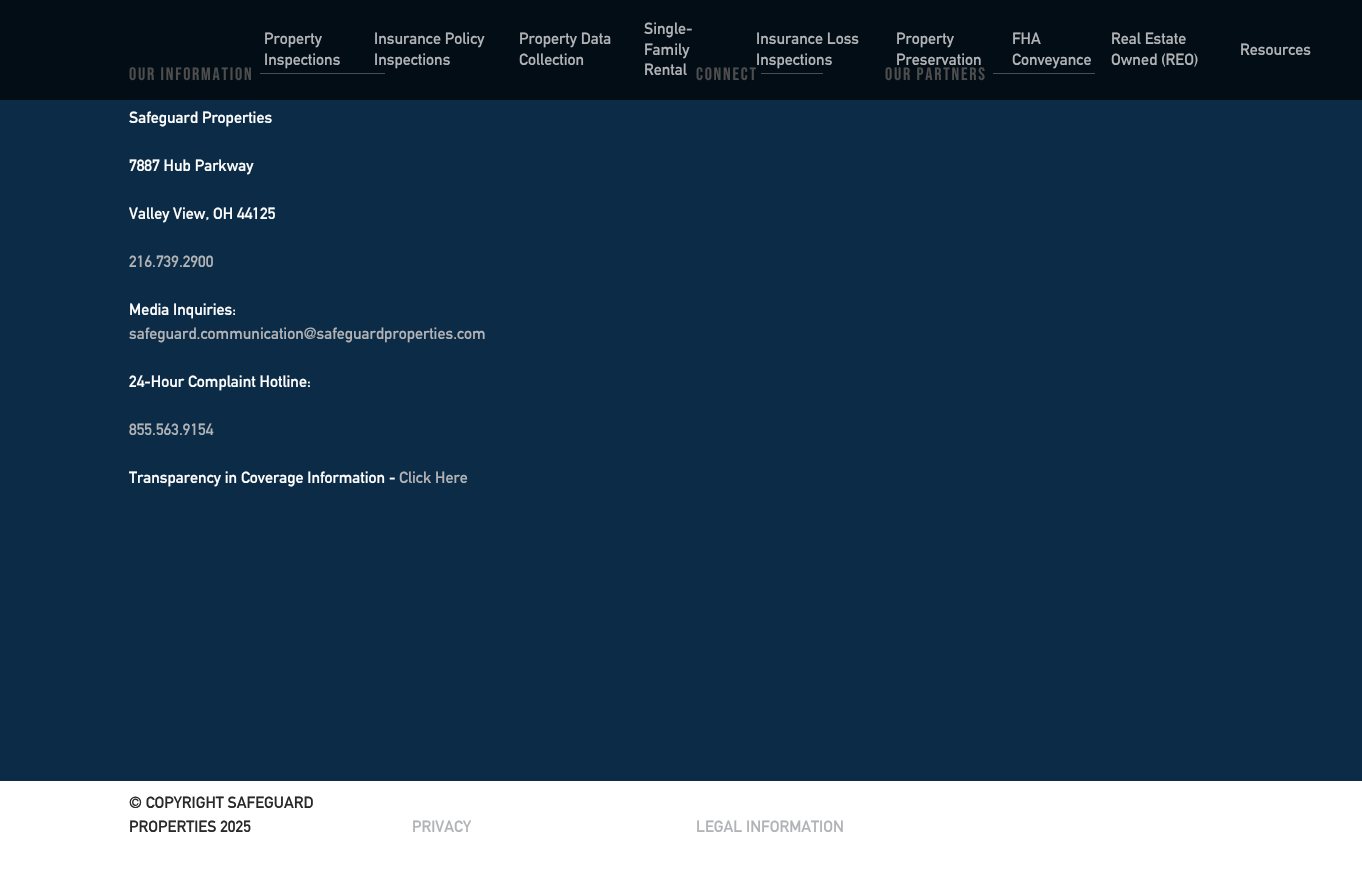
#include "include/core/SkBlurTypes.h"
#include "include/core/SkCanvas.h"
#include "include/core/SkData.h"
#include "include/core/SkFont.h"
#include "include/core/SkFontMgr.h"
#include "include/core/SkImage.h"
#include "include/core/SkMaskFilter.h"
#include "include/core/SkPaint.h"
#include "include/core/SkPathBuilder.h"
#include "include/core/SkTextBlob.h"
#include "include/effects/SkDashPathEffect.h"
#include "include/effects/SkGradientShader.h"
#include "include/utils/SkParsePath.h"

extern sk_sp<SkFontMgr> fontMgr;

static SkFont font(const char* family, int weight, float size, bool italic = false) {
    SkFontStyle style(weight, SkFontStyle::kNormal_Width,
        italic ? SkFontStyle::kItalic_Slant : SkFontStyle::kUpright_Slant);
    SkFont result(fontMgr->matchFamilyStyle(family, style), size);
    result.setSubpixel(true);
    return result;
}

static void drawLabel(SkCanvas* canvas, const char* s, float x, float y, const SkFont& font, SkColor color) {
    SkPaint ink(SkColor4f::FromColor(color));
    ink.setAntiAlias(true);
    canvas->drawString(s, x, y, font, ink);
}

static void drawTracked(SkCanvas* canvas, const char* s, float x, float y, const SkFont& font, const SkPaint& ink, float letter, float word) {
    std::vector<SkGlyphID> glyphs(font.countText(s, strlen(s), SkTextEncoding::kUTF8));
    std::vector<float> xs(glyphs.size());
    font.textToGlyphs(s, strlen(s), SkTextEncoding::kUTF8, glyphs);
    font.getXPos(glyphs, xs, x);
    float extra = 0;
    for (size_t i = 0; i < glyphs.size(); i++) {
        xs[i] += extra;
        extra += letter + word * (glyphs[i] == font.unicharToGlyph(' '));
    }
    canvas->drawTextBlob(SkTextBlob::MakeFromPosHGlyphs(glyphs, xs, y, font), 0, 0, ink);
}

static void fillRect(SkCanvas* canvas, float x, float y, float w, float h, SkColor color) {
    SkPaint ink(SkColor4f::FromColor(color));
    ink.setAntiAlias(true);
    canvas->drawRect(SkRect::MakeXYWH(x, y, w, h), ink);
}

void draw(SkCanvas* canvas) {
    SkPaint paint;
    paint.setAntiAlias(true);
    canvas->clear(0xFFFFFFFF);
    fillRect(canvas, 0, 0, 1362, 100, 0xFF030D15);
    SkFont font1 = font("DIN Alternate", 700, 16);
    drawLabel(canvas, "Property", 264, 44, font1, 0xFFB1B3B6);
    drawLabel(canvas, "Inspections", 264, 65, font1, 0xFFB1B3B6);
    drawLabel(canvas, "Insurance Policy", 374, 44, font1, 0xFFB1B3B6);
    drawLabel(canvas, "Inspections", 374, 65, font1, 0xFFB1B3B6);
    drawLabel(canvas, "Property Data", 519, 44, font1, 0xFFB1B3B6);
    drawLabel(canvas, "Collection", 519, 65, font1, 0xFFB1B3B6);
    drawLabel(canvas, "Single-", 644, 34, font1, 0xFFB1B3B6);
    drawLabel(canvas, "Family", 644, 55, font1, 0xFFB1B3B6);
    drawLabel(canvas, "Rental", 644, 75, font1, 0xFFB1B3B6);
    drawLabel(canvas, "Insurance Loss", 756, 44, font1, 0xFFB1B3B6);
    drawLabel(canvas, "Inspections", 756, 65, font1, 0xFFB1B3B6);
    drawLabel(canvas, "Property", 896, 44, font1, 0xFFB1B3B6);
    drawLabel(canvas, "Preservation", 896, 65, font1, 0xFFB1B3B6);
    drawLabel(canvas, "FHA", 1012, 44, font1, 0xFFB1B3B6);
    drawLabel(canvas, "Conveyance", 1012, 65, font1, 0xFFB1B3B6);
    drawLabel(canvas, "Real Estate", 1111, 44, font1, 0xFFB1B3B6);
    drawLabel(canvas, "Owned (REO)", 1111, 65, font1, 0xFFB1B3B6);
    drawLabel(canvas, "Resources", 1240, 55, font1, 0xFFB1B3B6);
    fillRect(canvas, 0, 100, 1362, 681, 0xFF0B2B46);
    SkFont font2 = font("Bebas Neue", 400, 18);
    paint.setColor(0xFF4D4D4D);
    drawTracked(canvas, "OUR INFORMATION", 129, 80, font2, paint, 1.75f, 0);
    fillRect(canvas, 260, 73, 125, 1, 0xFF4D4D4D);
    drawLabel(canvas, "Safeguard Properties", 129, 123, font1, 0xFFFFFFFF);
    drawLabel(canvas, "7887 Hub Parkway", 129, 171, font1, 0xFFFFFFFF);
    drawLabel(canvas, "Valley View, OH 44125", 129, 219, font1, 0xFFFFFFFF);
    drawLabel(canvas, "216.739.2900", 129, 267, font1, 0xFFB1B3B6);
    drawLabel(canvas, "Media Inquiries:", 129, 315, font1, 0xFFFFFFFF);
    drawLabel(canvas, "safeguard.communication@safeguardproperties.com", 129, 339, font1, 0xFFB1B3B6);
    drawLabel(canvas, "24-Hour Complaint Hotline:", 129, 387, font1, 0xFFFFFFFF);
    drawLabel(canvas, "855.563.9154", 129, 435, font1, 0xFFB1B3B6);
    drawLabel(canvas, "Transparency in Coverage Information -", 129, 483, font1, 0xFFFFFFFF);
    drawLabel(canvas, "Click Here", 399, 483, font1, 0xFFB1B3B6);
    drawTracked(canvas, "CONNECT", 696, 80, font2, paint, 1.75f, 0);
    fillRect(canvas, 761, 73, 62, 1, 0xFF4D4D4D);
    drawTracked(canvas, "OUR PARTNERS", 885, 80, font2, paint, 1.75f, 0);
    fillRect(canvas, 993, 73, 102, 1, 0xFF4D4D4D);
    drawLabel(canvas, "© COPYRIGHT SAFEGUARD", 129, 808, font1, 0xFF292929);
    drawLabel(canvas, "PROPERTIES 2025", 129, 832, font1, 0xFF292929);
    drawLabel(canvas, "PRIVACY", 412, 832, font1, 0xFFB1B3B6);
    drawLabel(canvas, "LEGAL INFORMATION", 696, 832, font1, 0xFFB1B3B6);
}
